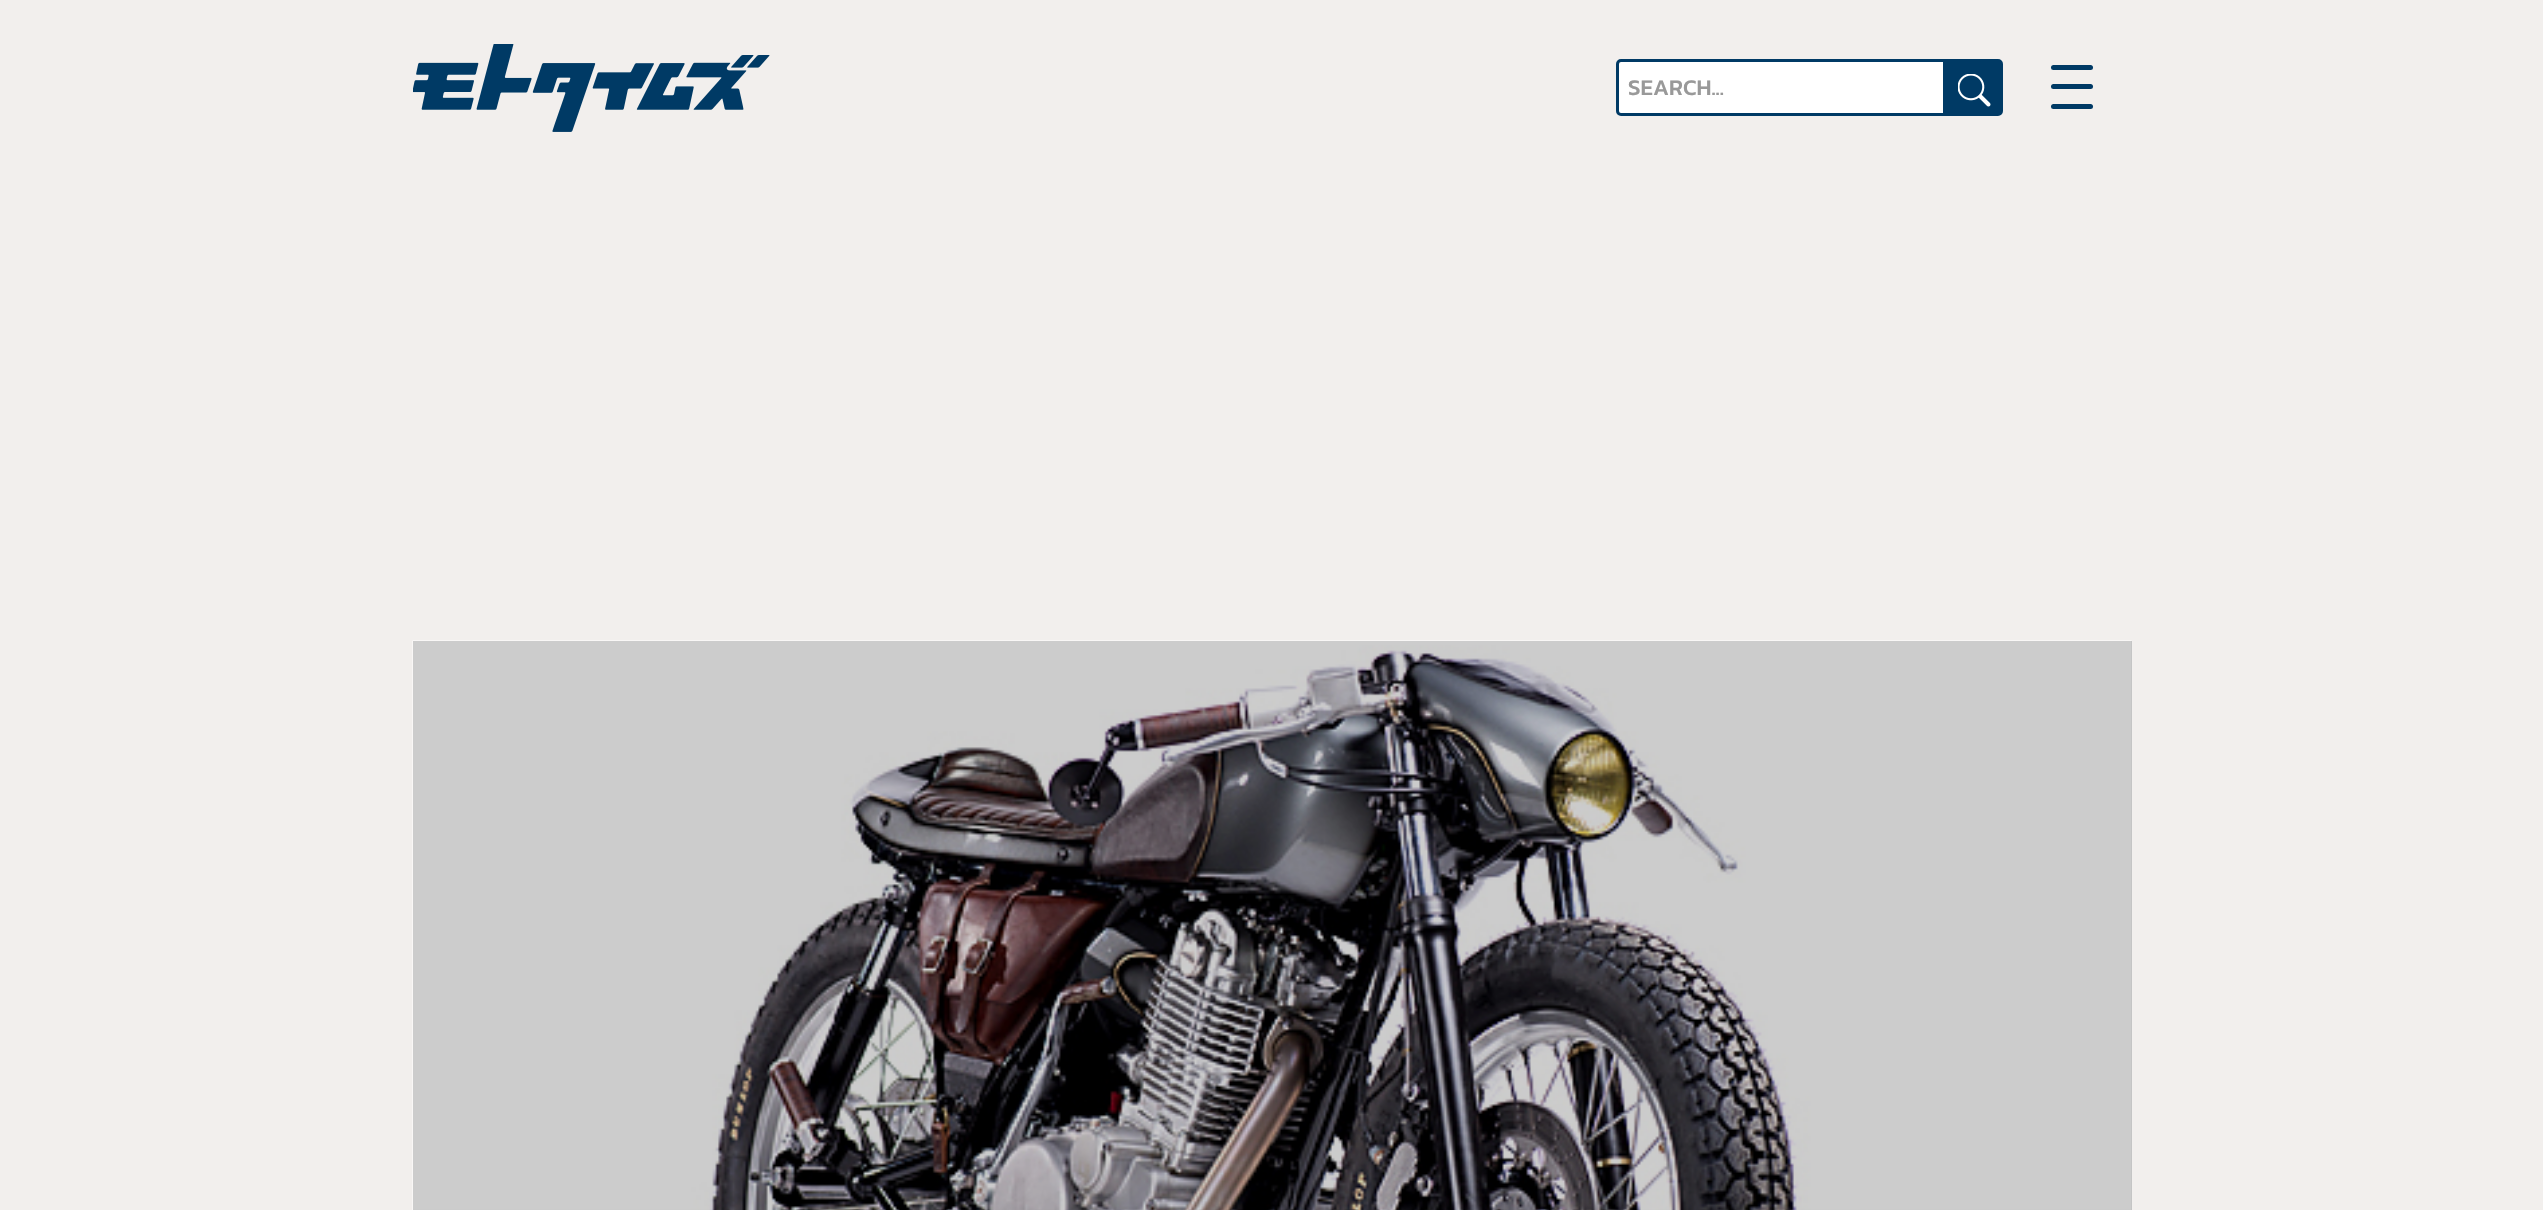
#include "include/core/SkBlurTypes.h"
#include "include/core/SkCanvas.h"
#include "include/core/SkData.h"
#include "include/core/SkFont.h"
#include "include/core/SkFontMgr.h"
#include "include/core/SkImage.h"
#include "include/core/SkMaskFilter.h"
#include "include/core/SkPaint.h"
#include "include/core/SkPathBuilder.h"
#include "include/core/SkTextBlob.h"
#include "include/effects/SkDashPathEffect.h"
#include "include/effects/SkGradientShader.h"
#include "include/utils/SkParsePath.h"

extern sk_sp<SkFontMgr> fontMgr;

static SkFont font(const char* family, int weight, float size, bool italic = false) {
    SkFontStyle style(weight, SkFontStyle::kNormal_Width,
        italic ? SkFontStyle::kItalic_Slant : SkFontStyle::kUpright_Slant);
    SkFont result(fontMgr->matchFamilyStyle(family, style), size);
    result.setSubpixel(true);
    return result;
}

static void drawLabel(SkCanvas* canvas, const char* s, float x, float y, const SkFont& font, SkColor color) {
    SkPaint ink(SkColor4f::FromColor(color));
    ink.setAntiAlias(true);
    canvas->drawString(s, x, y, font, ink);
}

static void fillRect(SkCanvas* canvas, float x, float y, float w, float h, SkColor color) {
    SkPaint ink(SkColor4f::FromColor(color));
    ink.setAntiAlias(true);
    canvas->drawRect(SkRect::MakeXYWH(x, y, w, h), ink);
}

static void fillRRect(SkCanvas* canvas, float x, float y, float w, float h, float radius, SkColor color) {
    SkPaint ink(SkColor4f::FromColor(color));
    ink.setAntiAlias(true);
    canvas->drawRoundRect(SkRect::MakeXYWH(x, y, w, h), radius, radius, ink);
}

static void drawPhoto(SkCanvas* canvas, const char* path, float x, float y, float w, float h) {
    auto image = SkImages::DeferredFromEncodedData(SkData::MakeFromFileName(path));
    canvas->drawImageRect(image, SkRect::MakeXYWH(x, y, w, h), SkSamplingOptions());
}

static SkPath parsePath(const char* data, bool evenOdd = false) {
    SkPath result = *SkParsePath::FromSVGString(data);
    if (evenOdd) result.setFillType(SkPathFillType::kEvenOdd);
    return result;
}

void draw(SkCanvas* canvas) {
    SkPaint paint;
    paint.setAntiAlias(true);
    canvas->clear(0xFFF2EFED);
    drawPhoto(canvas, "assets/img1.png", 413, 44, 357, 88);
    paint.setColor(0xFFFFFFFF);
    canvas->drawPath(parsePath("M1620.5 62H1943V113H1620.5C1619.5 113 1619 112.5 1619 111.5V63.5C1619 62.5 1619.5 62 1620.5 62Z"), paint);
    paint.setStroke(true);
    paint.setStrokeWidth(3);
    paint.setColor(0xFF003A65);
    canvas->drawPath(parsePath("M1621 60.5H1944.5V114.5H1621C1619 114.5 1617.5 113 1617.5 111V64C1617.5 62 1619 60.5 1621 60.5Z"), paint);
    SkFont font1 = font("Kanit", 500, 22.5f);
    drawLabel(canvas, "SEARCH...", 1628, 95, font1, 0xFF999999);
    paint.setStroke(false);
    canvas->drawPath(parsePath("M1947.5 60.5H1998C2000 60.5 2001.5 62 2001.5 64V111C2001.5 113 2000 114.5 1998 114.5H1947.5Z"), paint);
    paint.setStroke(true);
    canvas->drawPath(parsePath("M1947.5 60.5H1998C2000 60.5 2001.5 62 2001.5 64V111C2001.5 113 2000 114.5 1998 114.5H1947.5Z"), paint);
    drawPhoto(canvas, "assets/img2.png", 1958, 74, 33, 33);
    fillRRect(canvas, 2051, 65, 42, 5, 2.5f, 0xFF003A65);
    fillRRect(canvas, 2051, 84, 42, 5, 2.5f, 0xFF003A65);
    fillRRect(canvas, 2051, 104, 42, 5, 2.5f, 0xFF003A65);
    fillRect(canvas, 2131, 641, 1, 569, 0xFFEEEEEE);
    drawPhoto(canvas, "assets/img3.png", 412, 640, 1720, 570);
    paint.setStroke(false);
    {
        const SkColor colors[] = {0x33000000, 0xB3000000};
        const float stops[] = {0.6f, 1};
        const SkPoint ends[] = {{1272, 640}, {1272, 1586}};
        paint.setShader(SkGradientShader::MakeLinear(ends, colors, stops, 2, SkTileMode::kClamp));
        paint.setAlpha(255);
    }
    canvas->drawRect(SkRect::MakeXYWH(413, 641, 1719, 569), paint);
}
